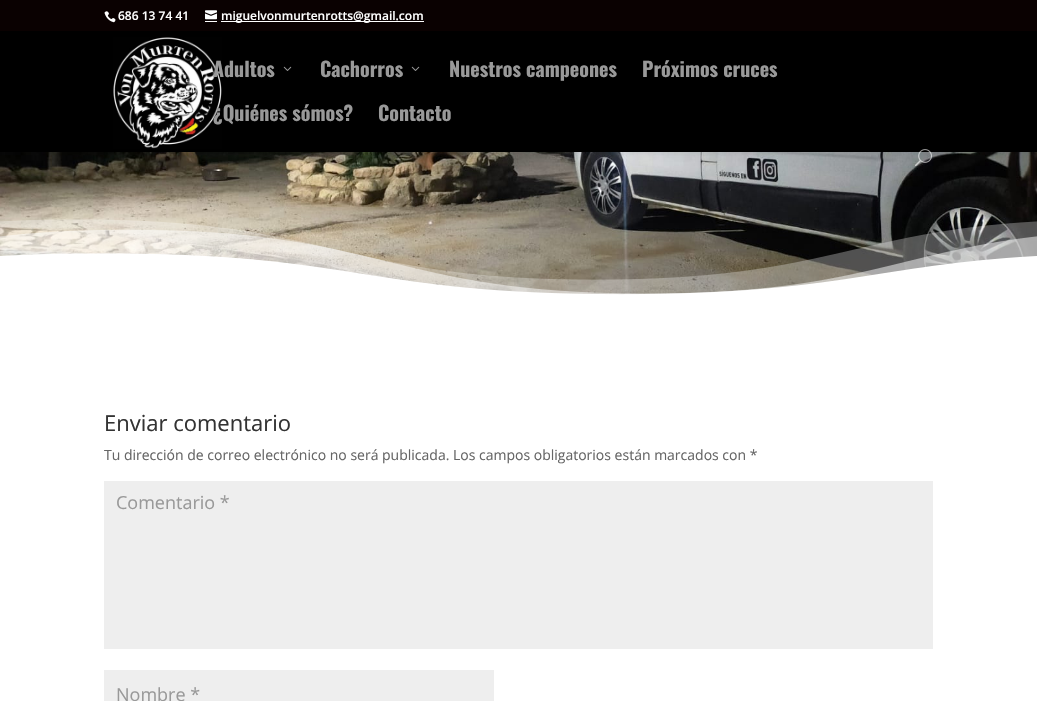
#include "include/core/SkBlurTypes.h"
#include "include/core/SkCanvas.h"
#include "include/core/SkData.h"
#include "include/core/SkFont.h"
#include "include/core/SkFontMgr.h"
#include "include/core/SkImage.h"
#include "include/core/SkMaskFilter.h"
#include "include/core/SkPaint.h"
#include "include/core/SkPathBuilder.h"
#include "include/core/SkTextBlob.h"
#include "include/effects/SkDashPathEffect.h"
#include "include/effects/SkGradientShader.h"
#include "include/utils/SkParsePath.h"

extern sk_sp<SkFontMgr> fontMgr;

static SkFont font(const char* family, int weight, float size, bool italic = false) {
    SkFontStyle style(weight, SkFontStyle::kNormal_Width,
        italic ? SkFontStyle::kItalic_Slant : SkFontStyle::kUpright_Slant);
    SkFont result(fontMgr->matchFamilyStyle(family, style), size);
    result.setSubpixel(true);
    return result;
}

static void drawLabel(SkCanvas* canvas, const char* s, float x, float y, const SkFont& font, SkColor color) {
    SkPaint ink(SkColor4f::FromColor(color));
    ink.setAntiAlias(true);
    canvas->drawString(s, x, y, font, ink);
}

static void fillRect(SkCanvas* canvas, float x, float y, float w, float h, SkColor color) {
    SkPaint ink(SkColor4f::FromColor(color));
    ink.setAntiAlias(true);
    canvas->drawRect(SkRect::MakeXYWH(x, y, w, h), ink);
}

static void drawPhoto(SkCanvas* canvas, const char* path, float x, float y, float w, float h) {
    auto image = SkImages::DeferredFromEncodedData(SkData::MakeFromFileName(path));
    canvas->drawImageRect(image, SkRect::MakeXYWH(x, y, w, h), SkSamplingOptions());
}

void draw(SkCanvas* canvas) {
    SkPaint paint;
    paint.setAntiAlias(true);
    canvas->clear(0xFFFFFFFF);
    drawPhoto(canvas, "assets/img6.png", 0, 152, 1037, 143);
    paint.setColor(0x1A000000);
    paint.setMaskFilter(SkMaskFilter::MakeBlur(kNormal_SkBlurStyle, 3.5f));
    canvas->drawRect(SkRect::MakeXYWH(0, 31, 1037, 121), paint);
    paint.setMaskFilter(nullptr);
    fillRect(canvas, 0, 0, 1037, 31, 0xFF0A0101);
    drawPhoto(canvas, "assets/img1.png", 104, 11, 12, 12);
    SkFont font1 = font("Open Sans", 600, 12);
    drawLabel(canvas, "686 13 74 41", 118, 20, font1, 0xFFFFFFFF);
    drawPhoto(canvas, "assets/img2.png", 205, 10, 12, 10);
    fillRect(canvas, 221, 21, 203, 1, 0xFFFFFFFF);
    drawLabel(canvas, "miguelvonmurtenrotts@gmail.com", 221, 20, font1, 0xFFFFFFFF);
    fillRect(canvas, 205, 21, 12, 1, 0xFFFFFFFF);
    fillRect(canvas, 0, 31, 1037, 121, 0xFF000000);
    drawPhoto(canvas, "assets/img3.png", 113, 37, 109, 112);
    SkFont font2 = font("Oswald", 700, 20);
    drawLabel(canvas, "Adultos", 213, 77, font2, 0xFF999999);
    drawPhoto(canvas, "assets/img4.png", 283, 66, 9, 5);
    drawLabel(canvas, "Cachorros", 320, 77, font2, 0xFF999999);
    drawPhoto(canvas, "assets/img4.png", 411, 66, 9, 5);
    drawLabel(canvas, "Nuestros campeones", 449, 77, font2, 0xFF999999);
    drawLabel(canvas, "Próximos cruces", 642, 77, font2, 0xFF999999);
    drawLabel(canvas, "¿Quiénes sómos?", 213, 121, font2, 0xFF999999);
    drawLabel(canvas, "Contacto", 378, 121, font2, 0xFF999999);
    drawPhoto(canvas, "assets/img5.png", 915, 149, 17, 17);
    drawPhoto(canvas, "assets/img7.png", 0, 219, 1037, 100);
    SkFont font3 = font("Open Sans", 400, 22);
    drawLabel(canvas, "Enviar comentario", 104, 431, font3, 0xFF333333);
    SkFont font4 = font("Open Sans", 400, 14);
    drawLabel(canvas, "Tu dirección de correo electrónico no será publicada. Los campos obligatorios están marcados con *", 104, 460, font4, 0xFF666666);
    fillRect(canvas, 104, 481, 829, 168, 0xFFEEEEEE);
    SkFont font5 = font("Open Sans", 400, 18);
    drawLabel(canvas, "Comentario *", 116, 509, font5, 0xFF999999);
    fillRect(canvas, 104, 670, 390, 31, 0xFFEEEEEE);
    drawLabel(canvas, "Nombre *", 116, 701, font5, 0xFF999999);
}
